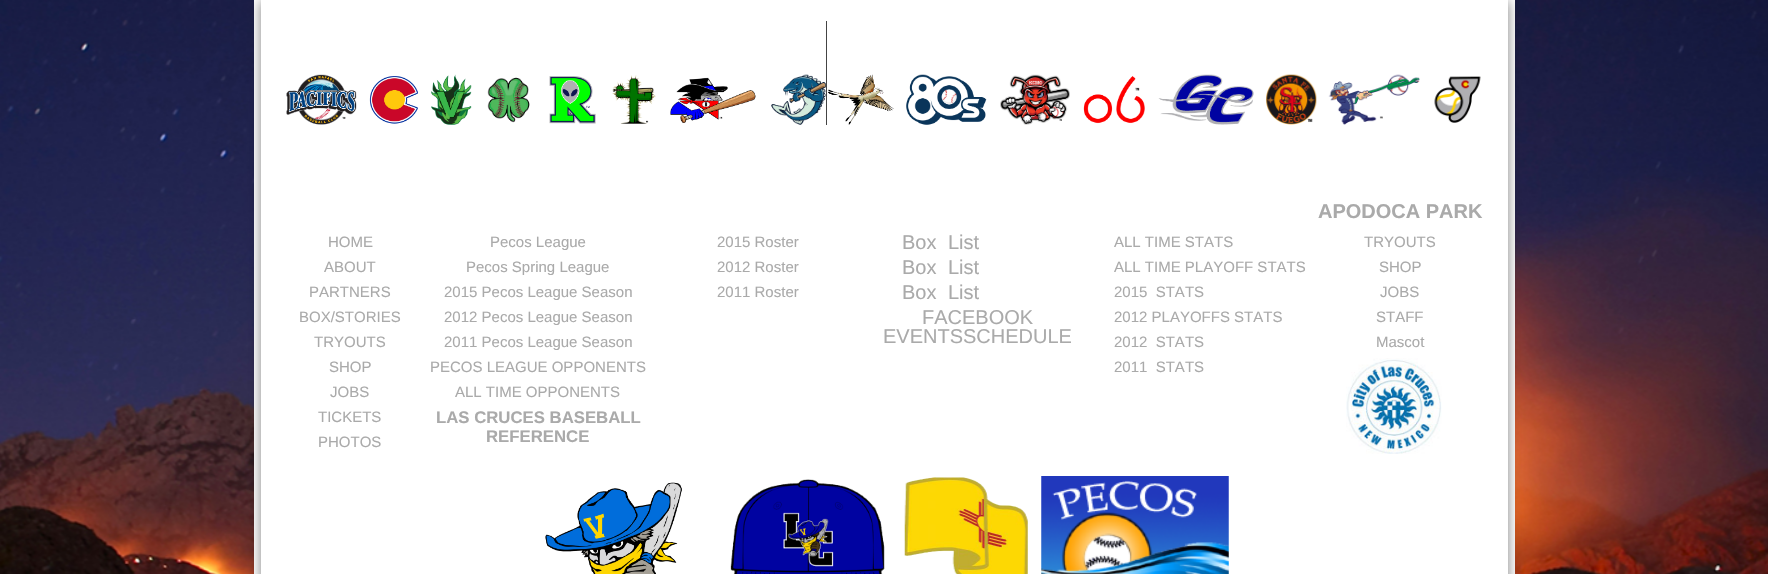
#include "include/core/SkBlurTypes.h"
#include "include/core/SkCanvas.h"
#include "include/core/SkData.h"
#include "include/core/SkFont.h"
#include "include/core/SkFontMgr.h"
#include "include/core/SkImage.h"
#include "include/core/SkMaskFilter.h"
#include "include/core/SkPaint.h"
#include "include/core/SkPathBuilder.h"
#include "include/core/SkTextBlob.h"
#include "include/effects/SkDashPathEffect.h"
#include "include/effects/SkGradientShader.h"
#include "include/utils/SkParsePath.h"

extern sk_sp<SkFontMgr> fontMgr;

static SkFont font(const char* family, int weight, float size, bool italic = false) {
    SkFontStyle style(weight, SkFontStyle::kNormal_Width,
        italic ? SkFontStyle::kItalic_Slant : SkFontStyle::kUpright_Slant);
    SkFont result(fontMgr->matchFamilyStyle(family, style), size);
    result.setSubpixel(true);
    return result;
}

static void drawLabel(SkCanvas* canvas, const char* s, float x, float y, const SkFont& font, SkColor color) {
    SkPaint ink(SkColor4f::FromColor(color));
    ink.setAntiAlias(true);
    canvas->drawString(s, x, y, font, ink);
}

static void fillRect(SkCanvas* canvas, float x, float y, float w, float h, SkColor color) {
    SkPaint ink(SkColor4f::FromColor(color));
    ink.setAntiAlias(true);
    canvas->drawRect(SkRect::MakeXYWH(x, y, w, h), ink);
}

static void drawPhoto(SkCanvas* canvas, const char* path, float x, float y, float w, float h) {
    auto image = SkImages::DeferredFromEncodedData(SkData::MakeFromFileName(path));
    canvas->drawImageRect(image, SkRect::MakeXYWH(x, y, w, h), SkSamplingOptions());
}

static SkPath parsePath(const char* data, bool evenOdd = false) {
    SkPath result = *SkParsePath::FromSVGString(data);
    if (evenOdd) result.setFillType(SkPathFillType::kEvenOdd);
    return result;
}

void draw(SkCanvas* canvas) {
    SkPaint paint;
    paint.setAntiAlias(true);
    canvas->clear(0xFFFFFFFF);
    drawPhoto(canvas, "assets/img1.png", 0, 0, 1768, 574);
    fillRect(canvas, 254, 0, 1261, 574, 0xFFFFFFFF);
    canvas->save();
    canvas->clipPath(parsePath("M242 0H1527V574H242ZM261-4H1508V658H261Z", true), true);
    paint.setColor(0x80000000);
    paint.setMaskFilter(SkMaskFilter::MakeBlur(kNormal_SkBlurStyle, 6));
    canvas->drawRect(SkRect::MakeXYWH(261, 1, 1247, 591), paint);
    paint.setMaskFilter(nullptr);
    canvas->restore();
    drawPhoto(canvas, "assets/img2.png", 286, 74, 71, 51);
    drawPhoto(canvas, "assets/img3.png", 369, 76, 49, 48);
    drawPhoto(canvas, "assets/img4.png", 431, 74, 41, 51);
    drawPhoto(canvas, "assets/img5.png", 487, 77, 43, 46);
    drawPhoto(canvas, "assets/img6.png", 549, 76, 47, 48);
    drawPhoto(canvas, "assets/img7.png", 612, 75, 44, 49);
    drawPhoto(canvas, "assets/img8.png", 670, 77, 86, 46);
    drawPhoto(canvas, "assets/img9.png", 771, 74, 55, 51);
    fillRect(canvas, 826, 21, 1, 104, 0xFF444444);
    drawPhoto(canvas, "assets/img10.png", 828, 74, 66, 51);
    drawPhoto(canvas, "assets/img11.png", 906, 74, 81, 51);
    drawPhoto(canvas, "assets/img12.png", 1000, 74, 70, 51);
    drawPhoto(canvas, "assets/img13.png", 1083, 76, 62, 48);
    drawPhoto(canvas, "assets/img14.png", 1158, 74, 96, 51);
    drawPhoto(canvas, "assets/img15.png", 1266, 74, 51, 51);
    drawPhoto(canvas, "assets/img16.png", 1328, 74, 92, 51);
    drawPhoto(canvas, "assets/img17.png", 1434, 76, 47, 47);
    SkFont font1 = font("Liberation Sans", 400, 15);
    drawLabel(canvas, "HOME", 328, 247, font1, 0xFFAAAAAA);
    drawLabel(canvas, "ABOUT", 324, 272, font1, 0xFFAAAAAA);
    drawLabel(canvas, "PARTNERS", 309, 297, font1, 0xFFAAAAAA);
    drawLabel(canvas, "BOX/STORIES", 299, 322, font1, 0xFFAAAAAA);
    drawLabel(canvas, "TRYOUTS", 314, 347, font1, 0xFFAAAAAA);
    drawLabel(canvas, "SHOP", 329, 372, font1, 0xFFAAAAAA);
    drawLabel(canvas, "JOBS", 330, 397, font1, 0xFFAAAAAA);
    drawLabel(canvas, "TICKETS", 318, 422, font1, 0xFFAAAAAA);
    drawLabel(canvas, "PHOTOS", 318, 447, font1, 0xFFAAAAAA);
    drawLabel(canvas, "Pecos League", 490, 247, font1, 0xFFAAAAAA);
    drawLabel(canvas, "Pecos Spring League", 466, 272, font1, 0xFFAAAAAA);
    drawLabel(canvas, "2015 Pecos League Season", 444, 297, font1, 0xFFAAAAAA);
    drawLabel(canvas, "2012 Pecos League Season", 444, 322, font1, 0xFFAAAAAA);
    drawLabel(canvas, "2011 Pecos League Season", 444, 347, font1, 0xFFAAAAAA);
    drawLabel(canvas, "PECOS LEAGUE OPPONENTS", 430, 372, font1, 0xFFAAAAAA);
    drawLabel(canvas, "ALL TIME OPPONENTS", 455, 397, font1, 0xFFAAAAAA);
    SkFont font2 = font("Liberation Sans", 700, 16.75f);
    drawLabel(canvas, "LAS CRUCES BASEBALL", 436, 423, font2, 0xFFAAAAAA);
    drawLabel(canvas, "REFERENCE", 486, 442, font2, 0xFFAAAAAA);
    drawLabel(canvas, "2015 Roster", 717, 247, font1, 0xFFAAAAAA);
    drawLabel(canvas, "2012 Roster", 717, 272, font1, 0xFFAAAAAA);
    drawLabel(canvas, "2011 Roster", 717, 297, font1, 0xFFAAAAAA);
    SkFont font3 = font("Liberation Sans", 400, 20);
    drawLabel(canvas, "Box", 902, 249, font3, 0xFFAAAAAA);
    drawLabel(canvas, "List", 948, 249, font3, 0xFFAAAAAA);
    drawLabel(canvas, "Box", 902, 274, font3, 0xFFAAAAAA);
    drawLabel(canvas, "List", 948, 274, font3, 0xFFAAAAAA);
    drawLabel(canvas, "Box", 902, 299, font3, 0xFFAAAAAA);
    drawLabel(canvas, "List", 948, 299, font3, 0xFFAAAAAA);
    drawLabel(canvas, "FACEBOOK", 922, 324, font3, 0xFFAAAAAA);
    drawLabel(canvas, "EVENTSSCHEDULE", 883, 343, font3, 0xFFAAAAAA);
    drawLabel(canvas, "ALL TIME STATS", 1114, 247, font1, 0xFFAAAAAA);
    drawLabel(canvas, "ALL TIME PLAYOFF STATS", 1114, 272, font1, 0xFFAAAAAA);
    drawLabel(canvas, "2015  STATS", 1114, 297, font1, 0xFFAAAAAA);
    drawLabel(canvas, "2012 PLAYOFFS STATS", 1114, 322, font1, 0xFFAAAAAA);
    drawLabel(canvas, "2012  STATS", 1114, 347, font1, 0xFFAAAAAA);
    drawLabel(canvas, "2011  STATS", 1114, 372, font1, 0xFFAAAAAA);
    SkFont font4 = font("Liberation Sans", 700, 20);
    drawLabel(canvas, "APODOCA PARK", 1318, 218, font4, 0xFFAAAAAA);
    drawLabel(canvas, "TRYOUTS", 1364, 247, font1, 0xFFAAAAAA);
    drawLabel(canvas, "SHOP", 1379, 272, font1, 0xFFAAAAAA);
    drawLabel(canvas, "JOBS", 1380, 297, font1, 0xFFAAAAAA);
    drawLabel(canvas, "STAFF", 1376, 322, font1, 0xFFAAAAAA);
    drawLabel(canvas, "Mascot", 1376, 347, font1, 0xFFAAAAAA);
    drawPhoto(canvas, "assets/img18.png", 1346, 358, 96, 96);
    drawPhoto(canvas, "assets/img19.png", 545, 482, 137, 92);
    drawPhoto(canvas, "assets/img20.png", 730, 479, 155, 95);
    drawPhoto(canvas, "assets/img21.png", 904, 477, 124, 97);
    drawPhoto(canvas, "assets/img22.png", 1041, 476, 188, 98);
}
